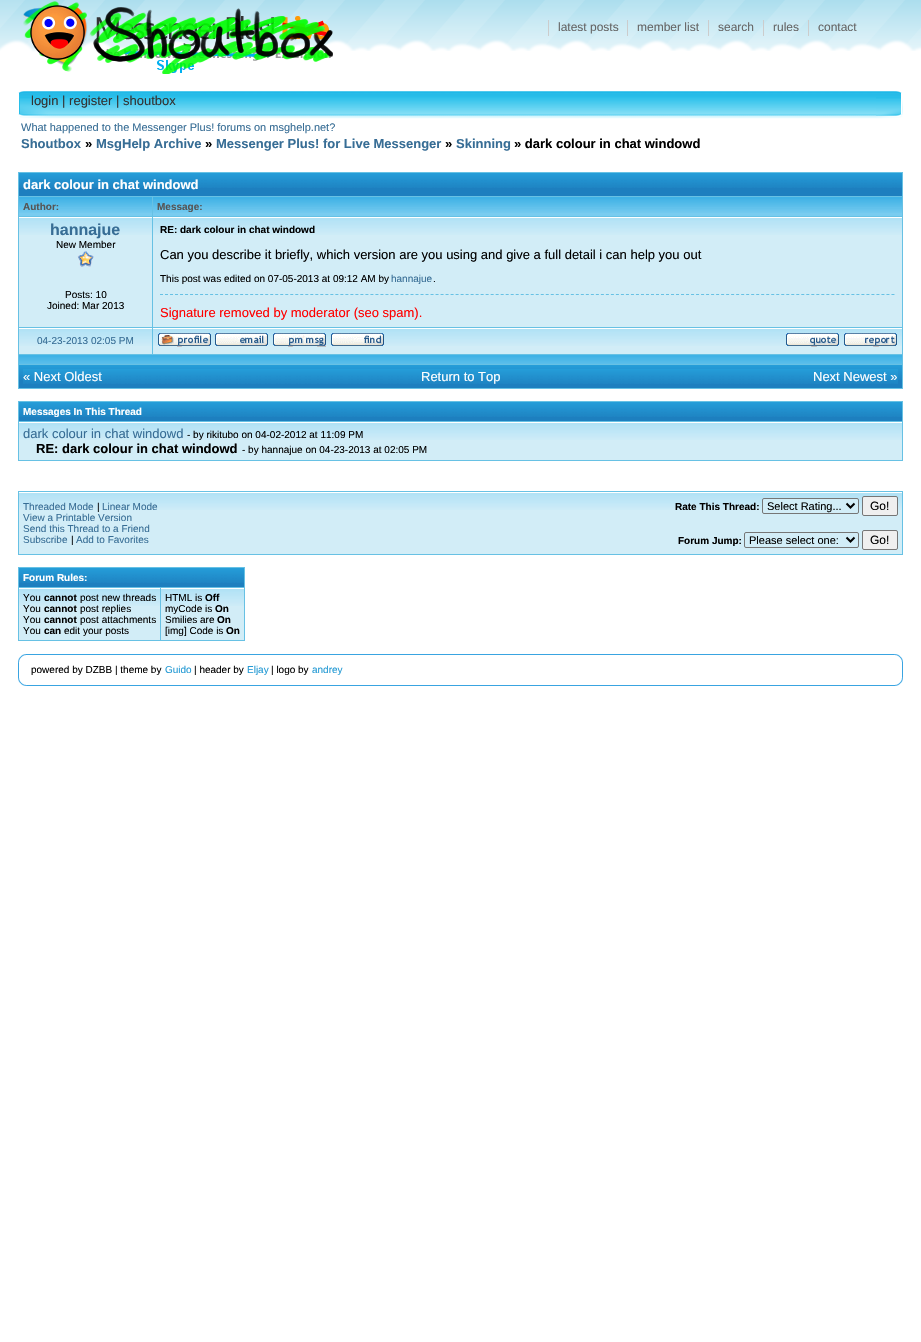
#include "include/core/SkBlurTypes.h"
#include "include/core/SkCanvas.h"
#include "include/core/SkData.h"
#include "include/core/SkFont.h"
#include "include/core/SkFontMgr.h"
#include "include/core/SkImage.h"
#include "include/core/SkMaskFilter.h"
#include "include/core/SkPaint.h"
#include "include/core/SkPathBuilder.h"
#include "include/core/SkTextBlob.h"
#include "include/effects/SkDashPathEffect.h"
#include "include/effects/SkGradientShader.h"
#include "include/utils/SkParsePath.h"

extern sk_sp<SkFontMgr> fontMgr;

static SkFont font(const char* family, int weight, float size, bool italic = false) {
    SkFontStyle style(weight, SkFontStyle::kNormal_Width,
        italic ? SkFontStyle::kItalic_Slant : SkFontStyle::kUpright_Slant);
    SkFont result(fontMgr->matchFamilyStyle(family, style), size);
    result.setSubpixel(true);
    return result;
}

static void drawLabel(SkCanvas* canvas, const char* s, float x, float y, const SkFont& font, SkColor color) {
    SkPaint ink(SkColor4f::FromColor(color));
    ink.setAntiAlias(true);
    canvas->drawString(s, x, y, font, ink);
}

static void fillRect(SkCanvas* canvas, float x, float y, float w, float h, SkColor color) {
    SkPaint ink(SkColor4f::FromColor(color));
    ink.setAntiAlias(true);
    canvas->drawRect(SkRect::MakeXYWH(x, y, w, h), ink);
}

static void drawPhoto(SkCanvas* canvas, const char* path, float x, float y, float w, float h) {
    auto image = SkImages::DeferredFromEncodedData(SkData::MakeFromFileName(path));
    canvas->drawImageRect(image, SkRect::MakeXYWH(x, y, w, h), SkSamplingOptions());
}

static SkPath parsePath(const char* data, bool evenOdd = false) {
    SkPath result = *SkParsePath::FromSVGString(data);
    if (evenOdd) result.setFillType(SkPathFillType::kEvenOdd);
    return result;
}

void draw(SkCanvas* canvas) {
    SkPaint paint;
    paint.setAntiAlias(true);
    canvas->clear(0xFFFFFFFF);
    drawPhoto(canvas, "assets/img1.png", 0, 0, 921, 51);
    drawPhoto(canvas, "assets/img2.png", 23, 1, 310, 73);
    fillRect(canvas, 548, 20, 1, 16, 0xFFCCCCCC);
    SkFont font1 = font("Liberation Sans", 400, 12);
    drawLabel(canvas, "latest posts", 558, 31, font1, 0xFF666666);
    fillRect(canvas, 627, 20, 1, 16, 0xFFCCCCCC);
    drawLabel(canvas, "member list", 637, 31, font1, 0xFF666666);
    fillRect(canvas, 708, 20, 1, 16, 0xFFCCCCCC);
    drawLabel(canvas, "search", 718, 31, font1, 0xFF666666);
    fillRect(canvas, 763, 20, 1, 16, 0xFFCCCCCC);
    drawLabel(canvas, "rules", 773, 31, font1, 0xFF666666);
    fillRect(canvas, 808, 20, 1, 16, 0xFFCCCCCC);
    drawLabel(canvas, "contact", 818, 31, font1, 0xFF666666);
    drawPhoto(canvas, "assets/img3.png", 58, 91, 818, 28);
    drawPhoto(canvas, "assets/img4.png", 876, 91, 27, 28);
    drawPhoto(canvas, "assets/img5.png", 18, 91, 40, 28);
    SkFont font2 = font("Liberation Sans", 400, 13);
    drawLabel(canvas, "login | register | shoutbox", 31, 105, font2, 0xFF333333);
    SkFont font3 = font("Liberation Sans", 400, 11);
    drawLabel(canvas, "What happened to the Messenger Plus! forums on msghelp.net?", 21, 131, font3, 0xFF376D95);
    SkFont font4 = font("Liberation Sans", 700, 13);
    drawLabel(canvas, "Shoutbox", 21, 148, font4, 0xFF376D95);
    drawLabel(canvas, "»", 85, 148, font4, 0xFF000000);
    drawLabel(canvas, "MsgHelp Archive", 96, 148, font4, 0xFF376D95);
    drawLabel(canvas, "»", 205, 148, font4, 0xFF000000);
    drawLabel(canvas, "Messenger Plus! for Live Messenger", 216, 148, font4, 0xFF376D95);
    drawLabel(canvas, "»", 445, 148, font4, 0xFF000000);
    drawLabel(canvas, "Skinning", 456, 148, font4, 0xFF376D95);
    drawLabel(canvas, "» dark colour in chat windowd", 514, 148, font4, 0xFF000000);
    fillRect(canvas, 18, 172, 885, 217, 0xFF67C1E4);
    fillRect(canvas, 19, 188, 883, 8, 0xFF1D7FBF);
    drawPhoto(canvas, "assets/img6.png", 19, 173, 883, 15);
    drawLabel(canvas, "dark colour in chat windowd", 23, 189, font4, 0xFFFFFFFF);
    fillRect(canvas, 19, 213, 133, 3, 0xFF79CCF0);
    drawPhoto(canvas, "assets/img7.png", 19, 197, 133, 16);
    SkFont font5 = font("Liberation Sans", 700, 10);
    drawLabel(canvas, "Author:", 23, 210, font5, 0xFF555555);
    fillRect(canvas, 153, 213, 749, 3, 0xFF79CCF0);
    drawPhoto(canvas, "assets/img8.png", 153, 197, 749, 16);
    drawLabel(canvas, "Message:", 157, 210, font5, 0xFF555555);
    fillRect(canvas, 19, 235, 133, 92, 0xFFD2EDF7);
    drawPhoto(canvas, "assets/img9.png", 19, 217, 133, 18);
    SkFont font6 = font("Liberation Sans", 700, 16);
    drawLabel(canvas, "hannajue", 50, 235, font6, 0xFF376D95);
    SkFont font7 = font("Liberation Sans", 400, 10);
    drawLabel(canvas, "New Member", 56, 248, font7, 0xFF000000);
    drawPhoto(canvas, "assets/img10.png", 77, 250, 17, 17);
    drawLabel(canvas, "Posts: 10", 65, 298, font7, 0xFF000000);
    drawLabel(canvas, "Joined: Mar 2013", 47, 309, font7, 0xFF000000);
    fillRect(canvas, 153, 235, 749, 92, 0xFFD2EDF7);
    drawPhoto(canvas, "assets/img11.png", 153, 217, 749, 18);
    drawLabel(canvas, "RE: dark colour in chat windowd", 160, 233, font5, 0xFF000000);
    drawLabel(canvas, "Can you describe it briefly, which version are you using and give a full detail i can help you out", 160, 259, font2, 0xFF000000);
    drawLabel(canvas, "This post was edited on 07-05-2013 at 09:12 AM by", 160, 282, font7, 0xFF000000);
    drawLabel(canvas, "hannajue", 391, 282, font7, 0xFF376D95);
    drawLabel(canvas, ".", 433, 282, font7, 0xFF000000);
    paint.setStroke(true);
    paint.setStrokeWidth(1);
    paint.setColor(0xFF67C1E4);
    paint.setPathEffect(SkDashPathEffect::Make({{3, 2.01f}}, 0));
    canvas->drawPath(parsePath("M160 294.5H895"), paint);
    paint.setPathEffect(nullptr);
    drawLabel(canvas, "Signature removed by moderator (seo spam).", 160, 317, font2, 0xFFFF0000);
    fillRect(canvas, 19, 346, 133, 8, 0xFFD2EDF7);
    drawPhoto(canvas, "assets/img9.png", 19, 328, 133, 18);
    drawLabel(canvas, "04-23-2013 02:05 PM", 37, 344, font7, 0xFF376D95);
    fillRect(canvas, 153, 346, 749, 8, 0xFFD2EDF7);
    drawPhoto(canvas, "assets/img11.png", 153, 328, 749, 18);
    drawPhoto(canvas, "assets/img12.png", 158, 333, 53, 14);
    drawPhoto(canvas, "assets/img13.png", 215, 333, 53, 13);
    drawPhoto(canvas, "assets/img14.png", 273, 333, 53, 14);
    drawPhoto(canvas, "assets/img15.png", 331, 333, 53, 13);
    drawPhoto(canvas, "assets/img16.png", 786, 333, 53, 14);
    drawPhoto(canvas, "assets/img17.png", 844, 333, 53, 14);
    drawPhoto(canvas, "assets/img18.png", 19, 355, 883, 9);
    fillRect(canvas, 19, 380, 883, 8, 0xFF1D7FBF);
    drawPhoto(canvas, "assets/img6.png", 19, 365, 883, 15);
    drawPhoto(canvas, "assets/img19.png", 23, 369, 292, 15);
    drawLabel(canvas, "« Next Oldest", 23, 381, font2, 0xFFFFFFFF);
    drawPhoto(canvas, "assets/img20.png", 315, 369, 291, 15);
    drawLabel(canvas, "Return to Top", 421, 381, font2, 0xFFFFFFFF);
    drawPhoto(canvas, "assets/img19.png", 606, 369, 292, 15);
    drawLabel(canvas, "Next Newest »", 813, 381, font2, 0xFFFFFFFF);
    fillRect(canvas, 18, 401, 885, 60, 0xFF67C1E4);
    fillRect(canvas, 19, 417, 883, 4, 0xFF1D7FBF);
    drawPhoto(canvas, "assets/img6.png", 19, 402, 883, 15);
    drawLabel(canvas, "Messages In This Thread", 23, 415, font5, 0xFFFFFFFF);
    fillRect(canvas, 19, 440, 883, 20, 0xFFD2EDF7);
    drawPhoto(canvas, "assets/img21.png", 19, 422, 883, 18);
    drawLabel(canvas, "dark colour in chat windowd", 23, 438, font2, 0xFF376D95);
    drawLabel(canvas, "- by rikitubo on 04-02-2012 at 11:09 PM", 187, 438, font7, 0xFF000000);
    drawLabel(canvas, "RE: dark colour in chat windowd", 36, 453, font4, 0xFF000000);
    drawLabel(canvas, "- by hannajue on 04-23-2013 at 02:05 PM", 242, 453, font7, 0xFF000000);
    fillRect(canvas, 18, 491, 885, 64, 0xFF67C1E4);
    fillRect(canvas, 19, 510, 883, 44, 0xFFD2EDF7);
    drawPhoto(canvas, "assets/img21.png", 19, 492, 883, 18);
    drawLabel(canvas, "Threaded Mode", 23, 510, font7, 0xFF376D95);
    drawLabel(canvas, "|", 97, 510, font7, 0xFF000000);
    drawLabel(canvas, "Linear Mode", 102, 510, font7, 0xFF376D95);
    drawLabel(canvas, "View a Printable Version", 23, 521, font7, 0xFF376D95);
    drawLabel(canvas, "Send this Thread to a Friend", 23, 532, font7, 0xFF376D95);
    drawLabel(canvas, "Subscribe", 23, 543, font7, 0xFF376D95);
    drawLabel(canvas, "|", 71, 543, font7, 0xFF000000);
    drawLabel(canvas, "Add to Favorites", 76, 543, font7, 0xFF376D95);
    drawLabel(canvas, "Rate This Thread:", 675, 510, font5, 0xFF000000);
    paint.setStroke(false);
    paint.setColor(0xFFD2EDF7);
    canvas->drawRoundRect(SkRect::MakeXYWH(762.5f, 498.5f, 96, 15), 1.5f, 1.5f, paint);
    paint.setStroke(true);
    paint.setColor(0xFF767676);
    canvas->drawRoundRect(SkRect::MakeXYWH(762.5f, 498.5f, 96, 15), 1.5f, 1.5f, paint);
    paint.setStrokeWidth(2);
    paint.setColor(0xFF000000);
    canvas->drawPath(parsePath("M846.5 503.5L850.5 507.5L854.5 503.5"), paint);
    drawLabel(canvas, "Select Rating...", 767, 510, font3, 0xFF000000);
    paint.setStroke(false);
    paint.setColor(0xFFEFEFEF);
    canvas->drawRoundRect(SkRect::MakeXYWH(862.5f, 496.5f, 35, 19), 1.5f, 1.5f, paint);
    paint.setStroke(true);
    paint.setStrokeWidth(1);
    paint.setColor(0xFF767676);
    canvas->drawRoundRect(SkRect::MakeXYWH(862.5f, 496.5f, 35, 19), 1.5f, 1.5f, paint);
    drawLabel(canvas, "Go!", 870, 510, font1, 0xFF000000);
    drawLabel(canvas, "Forum Jump:", 678, 544, font5, 0xFF000000);
    canvas->drawRoundRect(SkRect::MakeXYWH(744.5f, 532.5f, 114, 15), 1.5f, 1.5f, paint);
    paint.setStrokeWidth(2);
    paint.setColor(0xFF000000);
    canvas->drawPath(parsePath("M846.5 537.5L850.5 541.5L854.5 537.5"), paint);
    drawLabel(canvas, "Please select one:", 749, 544, font3, 0xFF000000);
    paint.setStroke(false);
    paint.setColor(0xFFEFEFEF);
    canvas->drawRoundRect(SkRect::MakeXYWH(862.5f, 530.5f, 35, 19), 1.5f, 1.5f, paint);
    paint.setStroke(true);
    paint.setStrokeWidth(1);
    paint.setColor(0xFF767676);
    canvas->drawRoundRect(SkRect::MakeXYWH(862.5f, 530.5f, 35, 19), 1.5f, 1.5f, paint);
    drawLabel(canvas, "Go!", 870, 544, font1, 0xFF000000);
    fillRect(canvas, 18, 567, 227, 74, 0xFF67C1E4);
    fillRect(canvas, 19, 583, 225, 4, 0xFF1D7FBF);
    drawPhoto(canvas, "assets/img22.png", 19, 568, 225, 15);
    drawLabel(canvas, "Forum Rules:", 23, 581, font5, 0xFFFFFFFF);
    fillRect(canvas, 19, 606, 141, 34, 0xFFD2EDF7);
    drawPhoto(canvas, "assets/img23.png", 19, 588, 141, 18);
    drawLabel(canvas, "You", 23, 601, font7, 0xFF000000);
    drawLabel(canvas, "cannot", 44, 601, font5, 0xFF000000);
    drawLabel(canvas, "post new threads", 80, 601, font7, 0xFF000000);
    drawLabel(canvas, "You", 23, 612, font7, 0xFF000000);
    drawLabel(canvas, "cannot", 44, 612, font5, 0xFF000000);
    drawLabel(canvas, "post replies", 80, 612, font7, 0xFF000000);
    drawLabel(canvas, "You", 23, 623, font7, 0xFF000000);
    drawLabel(canvas, "cannot", 44, 623, font5, 0xFF000000);
    drawLabel(canvas, "post attachments", 80, 623, font7, 0xFF000000);
    drawLabel(canvas, "You", 23, 634, font7, 0xFF000000);
    drawLabel(canvas, "can", 44, 634, font5, 0xFF000000);
    drawLabel(canvas, "edit your posts", 64, 634, font7, 0xFF000000);
    fillRect(canvas, 161, 606, 83, 34, 0xFFD2EDF7);
    drawPhoto(canvas, "assets/img24.png", 161, 588, 83, 18);
    drawLabel(canvas, "HTML is", 165, 601, font7, 0xFF000000);
    drawLabel(canvas, "Off", 205, 601, font5, 0xFF000000);
    drawLabel(canvas, "myCode is", 165, 612, font7, 0xFF000000);
    drawLabel(canvas, "On", 215, 612, font5, 0xFF000000);
    drawLabel(canvas, "Smilies are", 165, 623, font7, 0xFF000000);
    drawLabel(canvas, "On", 217, 623, font5, 0xFF000000);
    drawLabel(canvas, "[img] Code is", 165, 634, font7, 0xFF000000);
    drawLabel(canvas, "On", 226, 634, font5, 0xFF000000);
    fillRect(canvas, 18, 654, 876, 1, 0xFF39A4E1);
    fillRect(canvas, 27, 685, 876, 1, 0xFF39A4E1);
    fillRect(canvas, 18, 655, 1, 30, 0xFF39A4E1);
    fillRect(canvas, 902, 655, 1, 30, 0xFF39A4E1);
    drawPhoto(canvas, "assets/img25.png", 18, 678, 9, 8);
    drawPhoto(canvas, "assets/img26.png", 895, 677, 8, 9);
    drawPhoto(canvas, "assets/img27.png", 18, 654, 8, 9);
    drawPhoto(canvas, "assets/img28.png", 894, 654, 9, 8);
    drawLabel(canvas, "powered by DZBB | theme by", 31, 673, font7, 0xFF000000);
    drawLabel(canvas, "Guido", 165, 673, font7, 0xFF249AD4);
    drawLabel(canvas, "| header by", 194, 673, font7, 0xFF000000);
    drawLabel(canvas, "Eljay", 247, 673, font7, 0xFF249AD4);
    drawLabel(canvas, "| logo by", 271, 673, font7, 0xFF000000);
    drawLabel(canvas, "andrey", 312, 673, font7, 0xFF249AD4);
}
